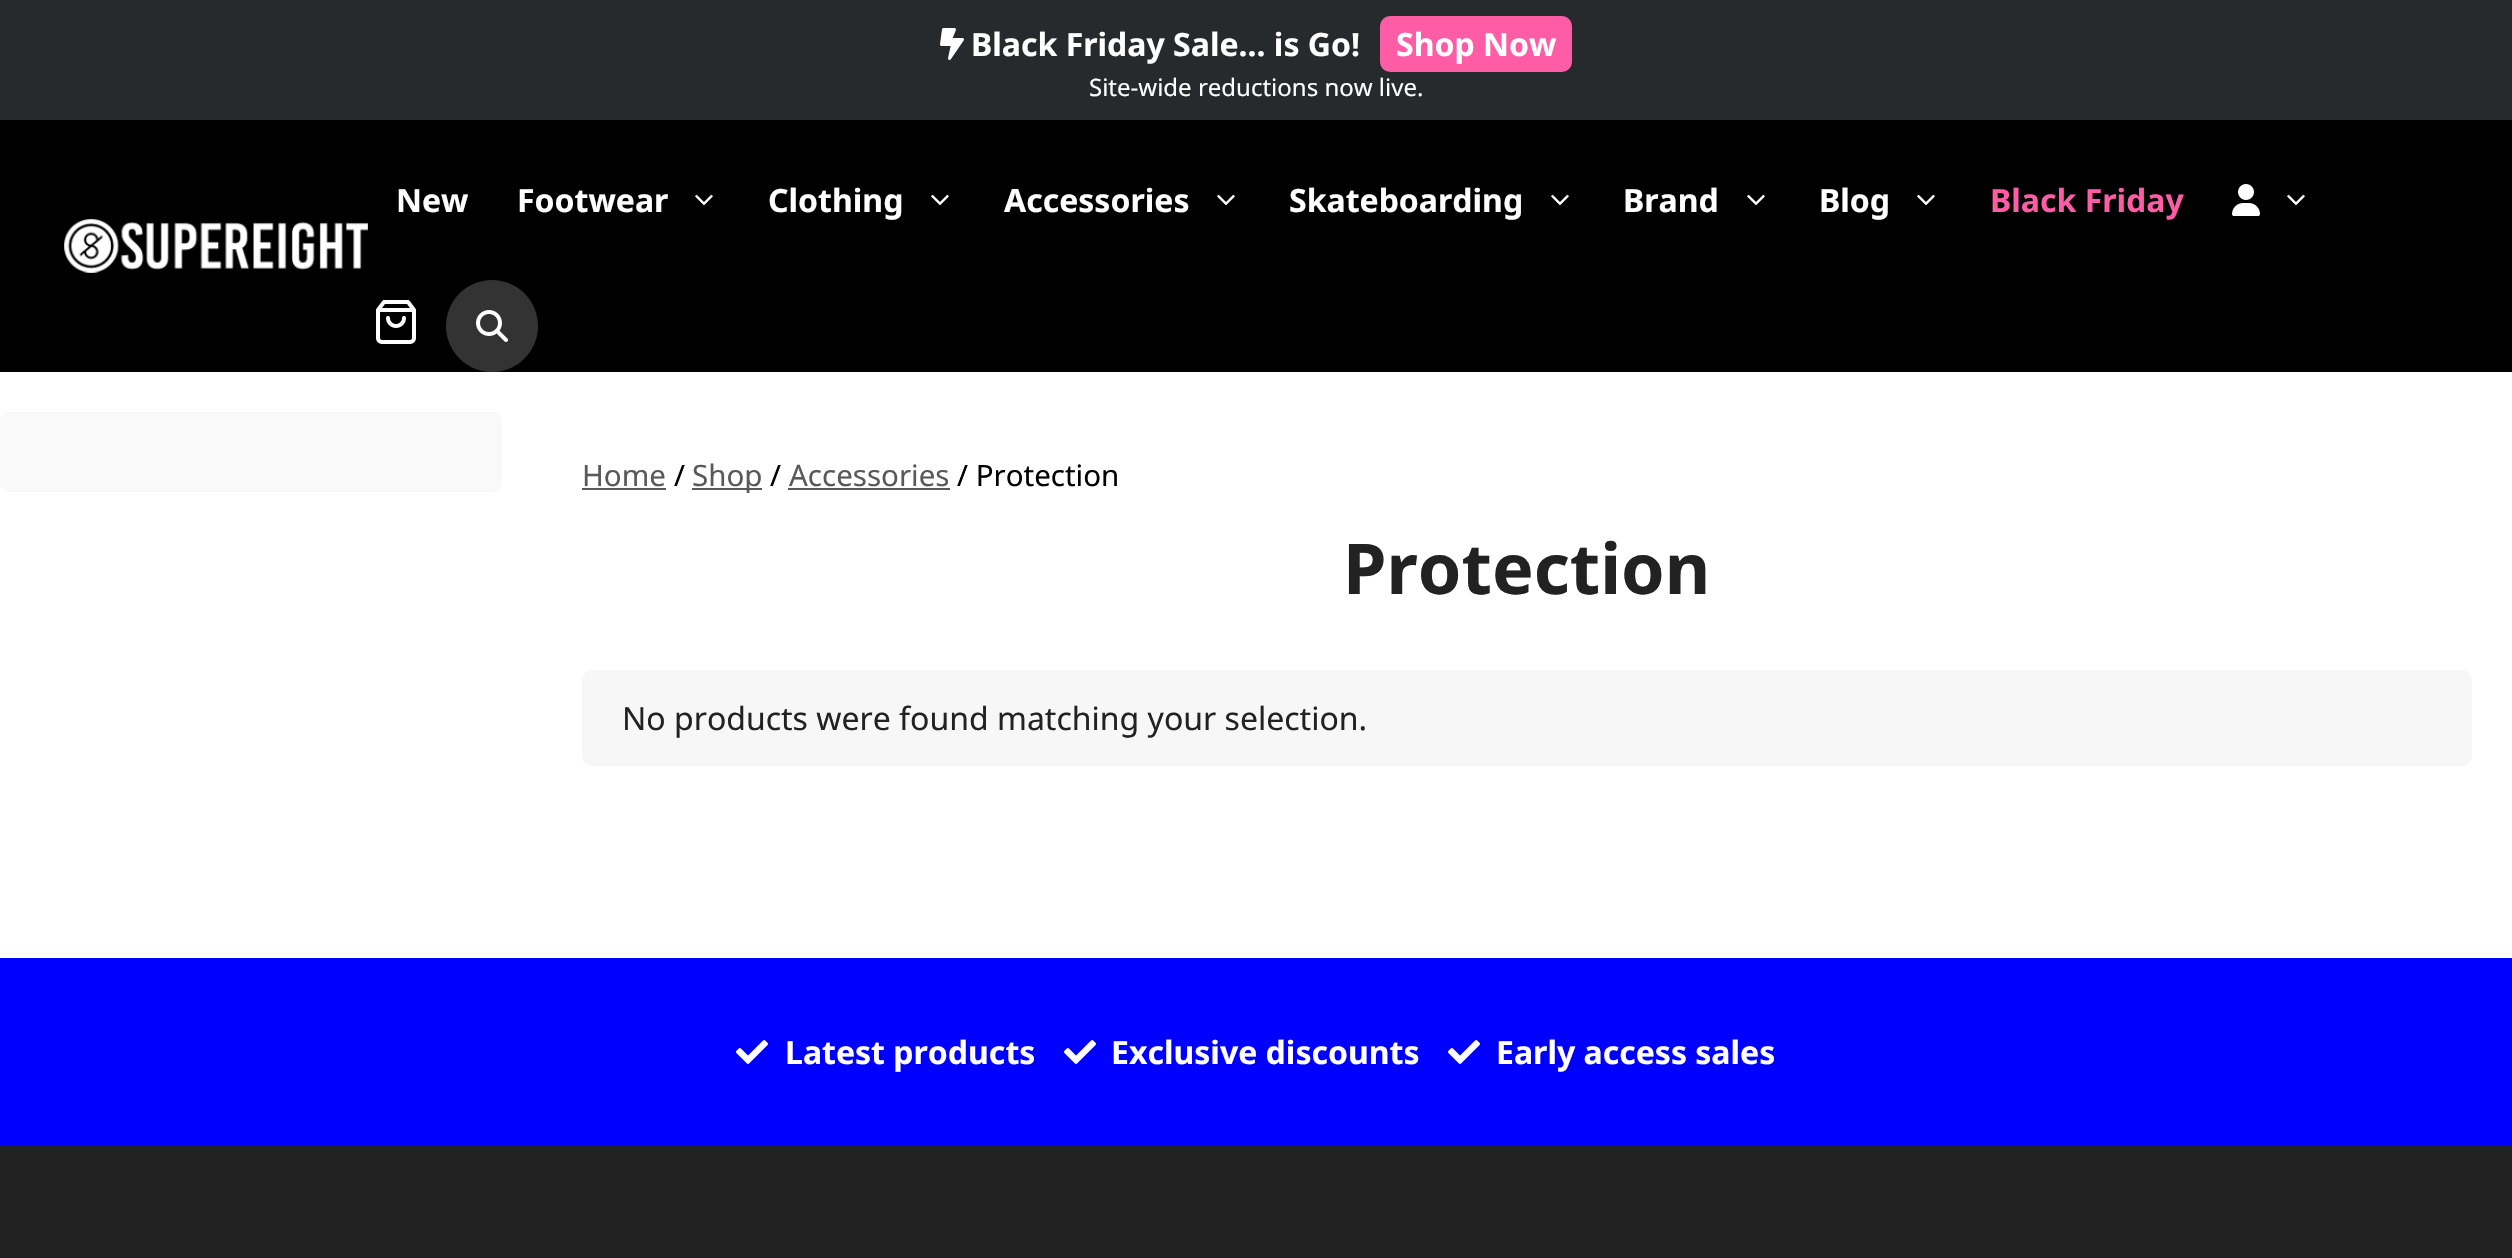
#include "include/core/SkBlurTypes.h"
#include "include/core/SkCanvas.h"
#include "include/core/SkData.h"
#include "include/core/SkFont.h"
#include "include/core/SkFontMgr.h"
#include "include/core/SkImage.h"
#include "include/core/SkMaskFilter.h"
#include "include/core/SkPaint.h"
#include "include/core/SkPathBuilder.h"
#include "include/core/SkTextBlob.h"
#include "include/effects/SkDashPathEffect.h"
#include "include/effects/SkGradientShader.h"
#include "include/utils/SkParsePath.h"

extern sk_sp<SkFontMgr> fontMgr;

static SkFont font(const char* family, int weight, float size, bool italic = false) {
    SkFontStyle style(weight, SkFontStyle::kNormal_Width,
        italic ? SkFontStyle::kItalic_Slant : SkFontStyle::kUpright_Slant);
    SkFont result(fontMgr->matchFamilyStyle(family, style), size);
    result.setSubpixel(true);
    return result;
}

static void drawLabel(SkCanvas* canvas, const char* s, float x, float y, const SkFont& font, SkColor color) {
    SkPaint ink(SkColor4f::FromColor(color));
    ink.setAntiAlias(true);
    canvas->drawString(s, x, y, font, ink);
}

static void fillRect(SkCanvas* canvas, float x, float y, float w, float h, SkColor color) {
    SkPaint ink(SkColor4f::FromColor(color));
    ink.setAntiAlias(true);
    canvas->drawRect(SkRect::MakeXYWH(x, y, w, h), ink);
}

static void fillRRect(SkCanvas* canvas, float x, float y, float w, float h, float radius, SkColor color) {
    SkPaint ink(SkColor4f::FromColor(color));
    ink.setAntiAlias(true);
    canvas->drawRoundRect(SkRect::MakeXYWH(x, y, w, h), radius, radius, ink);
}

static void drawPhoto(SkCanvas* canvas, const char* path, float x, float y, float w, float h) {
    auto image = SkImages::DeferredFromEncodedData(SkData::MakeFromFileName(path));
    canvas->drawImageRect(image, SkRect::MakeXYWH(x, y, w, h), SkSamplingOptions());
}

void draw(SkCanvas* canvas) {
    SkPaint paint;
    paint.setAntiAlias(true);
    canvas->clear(0xFFFFFFFF);
    fillRect(canvas, 0, 0, 2512, 120, 0xFF262A2C);
    drawPhoto(canvas, "assets/img1.png", 940, 28, 24, 32);
    SkFont font1 = font("Noto Sans", 700, 32);
    drawLabel(canvas, "Black Friday Sale... is Go!", 971, 56, font1, 0xFFFFFFFF);
    fillRRect(canvas, 1380, 16, 192, 56, 10, 0xFFFE5CA5);
    drawLabel(canvas, "Shop Now", 1396, 56, font1, 0xFFFFFFFF);
    SkFont font2 = font("Noto Sans", 400, 24);
    drawLabel(canvas, "Site-wide reductions now live.", 1089, 96, font2, 0xFFFFFFFF);
    fillRect(canvas, 0, 120, 2512, 252, 0xFF000000);
    drawLabel(canvas, "New", 396, 212, font1, 0xFFFFFFFF);
    drawLabel(canvas, "Footwear", 517, 212, font1, 0xFFFFFFFF);
    drawPhoto(canvas, "assets/img2.png", 695, 194, 18, 12);
    drawLabel(canvas, "Clothing", 768, 212, font1, 0xFFFFFFFF);
    drawPhoto(canvas, "assets/img2.png", 931, 194, 18, 12);
    drawLabel(canvas, "Accessories", 1004, 212, font1, 0xFFFFFFFF);
    drawPhoto(canvas, "assets/img2.png", 1217, 194, 18, 12);
    drawLabel(canvas, "Skateboarding", 1289, 212, font1, 0xFFFFFFFF);
    drawPhoto(canvas, "assets/img2.png", 1551, 194, 18, 12);
    drawLabel(canvas, "Brand", 1623, 212, font1, 0xFFFFFFFF);
    drawPhoto(canvas, "assets/img2.png", 1747, 194, 18, 12);
    drawLabel(canvas, "Blog", 1819, 212, font1, 0xFFFFFFFF);
    drawPhoto(canvas, "assets/img2.png", 1917, 194, 18, 12);
    drawLabel(canvas, "Black Friday", 1990, 212, font1, 0xFFFE5CA5);
    drawPhoto(canvas, "assets/img3.png", 2232, 184, 28, 32);
    drawPhoto(canvas, "assets/img2.png", 2287, 194, 18, 12);
    drawPhoto(canvas, "assets/img4.png", 376, 300, 40, 44);
    paint.setColor(0xFF333333);
    canvas->drawCircle(492, 326, 46, paint);
    drawPhoto(canvas, "assets/img5.png", 476, 310, 32, 32);
    drawPhoto(canvas, "assets/img6.png", 64, 219, 304, 54);
    fillRRect(canvas, 0, 412, 502, 80, 10, 0xFFF9F9F9);
    SkFont font3 = font("Noto Sans", 400, 29.5f);
    drawLabel(canvas, "Home", 582, 486, font3, 0xFF595959);
    fillRect(canvas, 582, 488, 84, 2, 0xFF595959);
    drawLabel(canvas, "/", 674, 486, font3, 0xFF000000);
    fillRect(canvas, 692, 488, 70, 2, 0xFF595959);
    drawLabel(canvas, "Shop", 692, 486, font3, 0xFF595959);
    drawLabel(canvas, "/", 770, 486, font3, 0xFF000000);
    drawLabel(canvas, "Accessories", 789, 486, font3, 0xFF595959);
    fillRect(canvas, 788, 488, 162, 2, 0xFF595959);
    drawLabel(canvas, "/ Protection", 957, 486, font3, 0xFF000000);
    SkFont font4 = font("Noto Sans", 700, 70);
    drawLabel(canvas, "Protection", 1343, 594, font4, 0xFF222222);
    fillRRect(canvas, 582, 670, 1890, 96, 10, 0xFFF7F7F7);
    SkFont font5 = font("Noto Sans", 400, 32);
    drawLabel(canvas, "No products were found matching your selection.", 622, 730, font5, 0xFF222222);
    fillRect(canvas, 0, 958, 2512, 188, 0xFF0000FF);
    drawPhoto(canvas, "assets/img7.png", 736, 1040, 32, 24);
    drawLabel(canvas, "Latest products", 785, 1064, font1, 0xFFFFFFFF);
    drawPhoto(canvas, "assets/img7.png", 1064, 1040, 32, 24);
    drawLabel(canvas, "Exclusive discounts", 1111, 1064, font1, 0xFFFFFFFF);
    drawPhoto(canvas, "assets/img7.png", 1448, 1040, 32, 24);
    drawLabel(canvas, "Early access sales", 1496, 1064, font1, 0xFFFFFFFF);
    fillRect(canvas, 0, 1146, 2512, 112, 0xFF222222);
}
